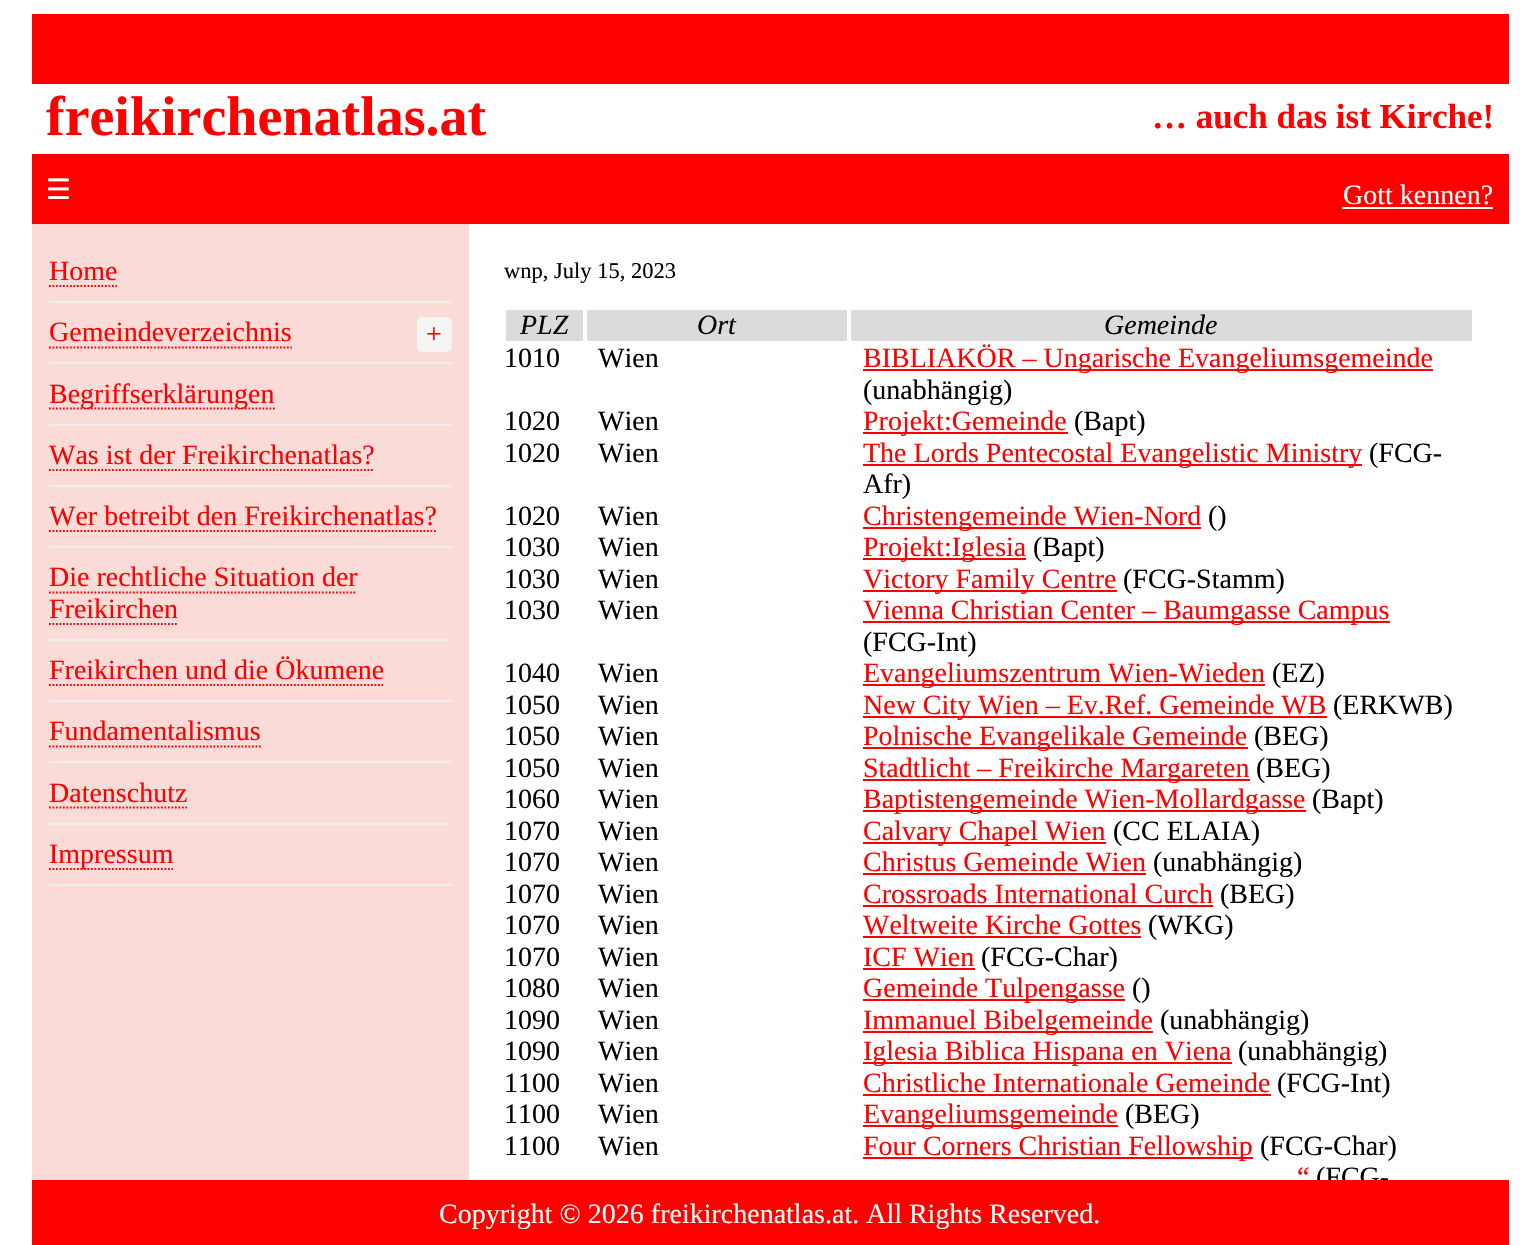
#include "include/core/SkBlurTypes.h"
#include "include/core/SkCanvas.h"
#include "include/core/SkData.h"
#include "include/core/SkFont.h"
#include "include/core/SkFontMgr.h"
#include "include/core/SkImage.h"
#include "include/core/SkMaskFilter.h"
#include "include/core/SkPaint.h"
#include "include/core/SkPathBuilder.h"
#include "include/core/SkTextBlob.h"
#include "include/effects/SkDashPathEffect.h"
#include "include/effects/SkGradientShader.h"
#include "include/utils/SkParsePath.h"

extern sk_sp<SkFontMgr> fontMgr;

static SkFont font(const char* family, int weight, float size, bool italic = false) {
    SkFontStyle style(weight, SkFontStyle::kNormal_Width,
        italic ? SkFontStyle::kItalic_Slant : SkFontStyle::kUpright_Slant);
    SkFont result(fontMgr->matchFamilyStyle(family, style), size);
    result.setSubpixel(true);
    return result;
}

static void drawLabel(SkCanvas* canvas, const char* s, float x, float y, const SkFont& font, SkColor color) {
    SkPaint ink(SkColor4f::FromColor(color));
    ink.setAntiAlias(true);
    canvas->drawString(s, x, y, font, ink);
}

static void fillRect(SkCanvas* canvas, float x, float y, float w, float h, SkColor color) {
    SkPaint ink(SkColor4f::FromColor(color));
    ink.setAntiAlias(true);
    canvas->drawRect(SkRect::MakeXYWH(x, y, w, h), ink);
}

static void fillRRect(SkCanvas* canvas, float x, float y, float w, float h, float radius, SkColor color) {
    SkPaint ink(SkColor4f::FromColor(color));
    ink.setAntiAlias(true);
    canvas->drawRoundRect(SkRect::MakeXYWH(x, y, w, h), radius, radius, ink);
}

static SkPath parsePath(const char* data, bool evenOdd = false) {
    SkPath result = *SkParsePath::FromSVGString(data);
    if (evenOdd) result.setFillType(SkPathFillType::kEvenOdd);
    return result;
}

void draw(SkCanvas* canvas) {
    SkPaint paint;
    paint.setAntiAlias(true);
    canvas->clear(0xFFFFFFFF);
    fillRect(canvas, 32, 14, 1477, 70, 0xFFFF0000);
    SkFont font1 = font("Liberation Serif", 700, 56);
    drawLabel(canvas, "freikirchenatlas.at", 46, 135, font1, 0xFFFF0000);
    SkFont font2 = font("Liberation Serif", 700, 35);
    drawLabel(canvas, "… auch das ist Kirche!", 1152, 128, font2, 0xFFFF0000);
    fillRect(canvas, 32, 154, 1477, 70, 0xFFFF0000);
    SkFont font3 = font("DejaVu Sans", 400, 28);
    drawLabel(canvas, "☰", 46, 199, font3, 0xFFFFFFFF);
    SkFont font4 = font("Liberation Serif", 400, 28);
    drawLabel(canvas, "Gott kennen?", 1343, 204, font4, 0xFFFFFFFF);
    fillRect(canvas, 1342, 207, 151, 2, 0xFFFFFFFF);
    fillRect(canvas, 32, 224, 437, 956, 0xFFFADBD8);
    fillRect(canvas, 49, 301, 403, 2, 0xFFEEEEEE);
    drawLabel(canvas, "Home", 49, 280, font4, 0xFFFF0000);
    paint.setStroke(true);
    paint.setStrokeWidth(1.8f);
    paint.setColor(0xFFFF0000);
    paint.setPathEffect(SkDashPathEffect::Make({{1.75f, 1.75f}}, 0));
    canvas->drawPath(parsePath("M49 286H117"), paint);
    paint.setPathEffect(nullptr);
    fillRect(canvas, 49, 362, 403, 2, 0xFFEEEEEE);
    drawLabel(canvas, "Gemeindeverzeichnis", 49, 341, font4, 0xFFFF0000);
    paint.setPathEffect(SkDashPathEffect::Make({{1.75f, 1.75f}}, 0));
    canvas->drawPath(parsePath("M49 347.5H292"), paint);
    paint.setPathEffect(nullptr);
    fillRRect(canvas, 417, 317, 35, 35, 5, 0xFFF5F5F5);
    drawLabel(canvas, "+", 426, 343, font4, 0xFFFF0000);
    fillRect(canvas, 49, 424, 403, 2, 0xFFEEEEEE);
    paint.setPathEffect(SkDashPathEffect::Make({{1.75f, 1.75f}}, 0));
    canvas->drawPath(parsePath("M49 408.5H275"), paint);
    paint.setPathEffect(nullptr);
    drawLabel(canvas, "Begriffserklärungen", 49, 403, font4, 0xFFFF0000);
    fillRect(canvas, 49, 485, 403, 2, 0xFFEEEEEE);
    drawLabel(canvas, "Was ist der Freikirchenatlas?", 49, 464, font4, 0xFFFF0000);
    paint.setPathEffect(SkDashPathEffect::Make({{1.75f, 1.75f}}, 0));
    canvas->drawPath(parsePath("M49 470H374.5"), paint);
    paint.setPathEffect(nullptr);
    fillRect(canvas, 49, 546, 403, 2, 0xFFEEEEEE);
    drawLabel(canvas, "Wer betreibt den Freikirchenatlas?", 49, 525, font4, 0xFFFF0000);
    paint.setPathEffect(SkDashPathEffect::Make({{1.75f, 1.75f}}, 0));
    canvas->drawPath(parsePath("M49 531H437.5"), paint);
    paint.setPathEffect(nullptr);
    fillRect(canvas, 49, 639, 403, 2, 0xFFEEEEEE);
    drawLabel(canvas, "Die rechtliche Situation der", 49, 586, font4, 0xFFFF0000);
    paint.setPathEffect(SkDashPathEffect::Make({{1.75f, 1.75f}}, 0));
    canvas->drawPath(parsePath("M49 592.5H357"), paint);
    paint.setPathEffect(nullptr);
    drawLabel(canvas, "Freikirchen", 49, 618, font4, 0xFFFF0000);
    paint.setPathEffect(SkDashPathEffect::Make({{1.75f, 1.75f}}, 0));
    canvas->drawPath(parsePath("M49 624H178.5"), paint);
    paint.setPathEffect(nullptr);
    fillRect(canvas, 49, 700, 403, 2, 0xFFEEEEEE);
    drawLabel(canvas, "Freikirchen und die Ökumene", 49, 679, font4, 0xFFFF0000);
    paint.setPathEffect(SkDashPathEffect::Make({{1.75f, 1.75f}}, 0));
    canvas->drawPath(parsePath("M49 685H385"), paint);
    paint.setPathEffect(nullptr);
    fillRect(canvas, 49, 761, 403, 2, 0xFFEEEEEE);
    drawLabel(canvas, "Fundamentalismus", 49, 740, font4, 0xFFFF0000);
    paint.setPathEffect(SkDashPathEffect::Make({{1.75f, 1.75f}}, 0));
    canvas->drawPath(parsePath("M49 746.5H261"), paint);
    paint.setPathEffect(nullptr);
    fillRect(canvas, 49, 823, 403, 2, 0xFFEEEEEE);
    drawLabel(canvas, "Datenschutz", 49, 802, font4, 0xFFFF0000);
    paint.setPathEffect(SkDashPathEffect::Make({{1.75f, 1.75f}}, 0));
    canvas->drawPath(parsePath("M49 807.5H187"), paint);
    paint.setPathEffect(nullptr);
    fillRect(canvas, 49, 884, 403, 2, 0xFFEEEEEE);
    paint.setPathEffect(SkDashPathEffect::Make({{1.75f, 1.75f}}, 0));
    canvas->drawPath(parsePath("M49 869H173"), paint);
    paint.setPathEffect(nullptr);
    drawLabel(canvas, "Impressum", 49, 863, font4, 0xFFFF0000);
    SkFont font5 = font("Liberation Serif", 400, 22.5f);
    drawLabel(canvas, "wnp, July 15, 2023", 504, 278, font5, 0xFF000000);
    fillRect(canvas, 506, 310, 77, 31, 0xFFDBDBDB);
    SkFont font6 = font("Liberation Serif", 400, 28, true);
    drawLabel(canvas, "PLZ", 520, 334, font6, 0xFF000000);
    fillRect(canvas, 587, 310, 260, 31, 0xFFDBDBDB);
    drawLabel(canvas, "Ort", 697, 334, font6, 0xFF000000);
    fillRect(canvas, 851, 310, 621, 31, 0xFFDBDBDB);
    drawLabel(canvas, "Gemeinde", 1104, 334, font6, 0xFF000000);
    drawLabel(canvas, "1010", 504, 367, font4, 0xFF000000);
    drawLabel(canvas, "Wien", 598, 367, font4, 0xFF000000);
    fillRect(canvas, 863, 369, 570, 2, 0xFFFF0000);
    drawLabel(canvas, "BIBLIAKÖR – Ungarische Evangeliumsgemeinde", 863, 367, font4, 0xFFFF0000);
    drawLabel(canvas, "(unabhängig)", 863, 399, font4, 0xFF000000);
    drawLabel(canvas, "1020", 504, 430, font4, 0xFF000000);
    drawLabel(canvas, "Wien", 598, 430, font4, 0xFF000000);
    fillRect(canvas, 863, 432, 205, 2, 0xFFFF0000);
    drawLabel(canvas, "Projekt:Gemeinde", 863, 430, font4, 0xFFFF0000);
    drawLabel(canvas, "(Bapt)", 1074, 430, font4, 0xFF000000);
    drawLabel(canvas, "1020", 504, 462, font4, 0xFF000000);
    drawLabel(canvas, "Wien", 598, 462, font4, 0xFF000000);
    fillRect(canvas, 863, 464, 499, 2, 0xFFFF0000);
    drawLabel(canvas, "The Lords Pentecostal Evangelistic Ministry", 863, 462, font4, 0xFFFF0000);
    drawLabel(canvas, "(FCG-", 1369, 462, font4, 0xFF000000);
    drawLabel(canvas, "Afr)", 863, 493, font4, 0xFF000000);
    drawLabel(canvas, "1020", 504, 525, font4, 0xFF000000);
    drawLabel(canvas, "Wien", 598, 525, font4, 0xFF000000);
    fillRect(canvas, 863, 527, 338, 2, 0xFFFF0000);
    drawLabel(canvas, "Christengemeinde Wien-Nord", 863, 525, font4, 0xFFFF0000);
    drawLabel(canvas, "()", 1208, 525, font4, 0xFF000000);
    drawLabel(canvas, "1030", 504, 556, font4, 0xFF000000);
    drawLabel(canvas, "Wien", 598, 556, font4, 0xFF000000);
    fillRect(canvas, 863, 558, 163, 2, 0xFFFF0000);
    drawLabel(canvas, "Projekt:Iglesia", 863, 556, font4, 0xFFFF0000);
    drawLabel(canvas, "(Bapt)", 1033, 556, font4, 0xFF000000);
    drawLabel(canvas, "1030", 504, 588, font4, 0xFF000000);
    drawLabel(canvas, "Wien", 598, 588, font4, 0xFF000000);
    fillRect(canvas, 863, 590, 254, 2, 0xFFFF0000);
    drawLabel(canvas, "Victory Family Centre", 863, 588, font4, 0xFFFF0000);
    drawLabel(canvas, "(FCG-Stamm)", 1123, 588, font4, 0xFF000000);
    drawLabel(canvas, "1030", 504, 619, font4, 0xFF000000);
    drawLabel(canvas, "Wien", 598, 619, font4, 0xFF000000);
    fillRect(canvas, 863, 621, 527, 2, 0xFFFF0000);
    drawLabel(canvas, "Vienna Christian Center – Baumgasse Campus", 863, 619, font4, 0xFFFF0000);
    drawLabel(canvas, "(FCG-Int)", 863, 651, font4, 0xFF000000);
    drawLabel(canvas, "1040", 504, 682, font4, 0xFF000000);
    drawLabel(canvas, "Wien", 598, 682, font4, 0xFF000000);
    fillRect(canvas, 863, 684, 402, 2, 0xFFFF0000);
    drawLabel(canvas, "Evangeliumszentrum Wien-Wieden", 863, 682, font4, 0xFFFF0000);
    drawLabel(canvas, "(EZ)", 1272, 682, font4, 0xFF000000);
    drawLabel(canvas, "1050", 504, 714, font4, 0xFF000000);
    drawLabel(canvas, "Wien", 598, 714, font4, 0xFF000000);
    fillRect(canvas, 863, 716, 464, 2, 0xFFFF0000);
    drawLabel(canvas, "New City Wien – Ev.Ref. Gemeinde WB", 863, 714, font4, 0xFFFF0000);
    drawLabel(canvas, "(ERKWB)", 1333, 714, font4, 0xFF000000);
    drawLabel(canvas, "1050", 504, 745, font4, 0xFF000000);
    drawLabel(canvas, "Wien", 598, 745, font4, 0xFF000000);
    fillRect(canvas, 863, 747, 385, 2, 0xFFFF0000);
    drawLabel(canvas, "Polnische Evangelikale Gemeinde", 863, 745, font4, 0xFFFF0000);
    drawLabel(canvas, "(BEG)", 1254, 745, font4, 0xFF000000);
    drawLabel(canvas, "1050", 504, 777, font4, 0xFF000000);
    drawLabel(canvas, "Wien", 598, 777, font4, 0xFF000000);
    fillRect(canvas, 863, 779, 387, 2, 0xFFFF0000);
    drawLabel(canvas, "Stadtlicht – Freikirche Margareten", 863, 777, font4, 0xFFFF0000);
    drawLabel(canvas, "(BEG)", 1256, 777, font4, 0xFF000000);
    drawLabel(canvas, "1060", 504, 808, font4, 0xFF000000);
    drawLabel(canvas, "Wien", 598, 808, font4, 0xFF000000);
    fillRect(canvas, 863, 810, 443, 2, 0xFFFF0000);
    drawLabel(canvas, "Baptistengemeinde Wien-Mollardgasse", 863, 808, font4, 0xFFFF0000);
    drawLabel(canvas, "(Bapt)", 1312, 808, font4, 0xFF000000);
    drawLabel(canvas, "1070", 504, 840, font4, 0xFF000000);
    drawLabel(canvas, "Wien", 598, 840, font4, 0xFF000000);
    fillRect(canvas, 863, 842, 243, 2, 0xFFFF0000);
    drawLabel(canvas, "Calvary Chapel Wien", 863, 840, font4, 0xFFFF0000);
    drawLabel(canvas, "(CC ELAIA)", 1113, 840, font4, 0xFF000000);
    drawLabel(canvas, "1070", 504, 871, font4, 0xFF000000);
    drawLabel(canvas, "Wien", 598, 871, font4, 0xFF000000);
    drawLabel(canvas, "Christus Gemeinde Wien", 863, 871, font4, 0xFFFF0000);
    fillRect(canvas, 863, 873, 283, 2, 0xFFFF0000);
    drawLabel(canvas, "(unabhängig)", 1153, 871, font4, 0xFF000000);
    drawLabel(canvas, "1070", 504, 903, font4, 0xFF000000);
    drawLabel(canvas, "Wien", 598, 903, font4, 0xFF000000);
    drawLabel(canvas, "Crossroads International Curch", 863, 903, font4, 0xFFFF0000);
    fillRect(canvas, 863, 905, 350, 2, 0xFFFF0000);
    drawLabel(canvas, "(BEG)", 1220, 903, font4, 0xFF000000);
    drawLabel(canvas, "1070", 504, 934, font4, 0xFF000000);
    drawLabel(canvas, "Wien", 598, 934, font4, 0xFF000000);
    drawLabel(canvas, "Weltweite Kirche Gottes", 863, 934, font4, 0xFFFF0000);
    fillRect(canvas, 863, 936, 278, 2, 0xFFFF0000);
    drawLabel(canvas, "(WKG)", 1148, 934, font4, 0xFF000000);
    drawLabel(canvas, "1070", 504, 966, font4, 0xFF000000);
    drawLabel(canvas, "Wien", 598, 966, font4, 0xFF000000);
    drawLabel(canvas, "ICF Wien", 863, 966, font4, 0xFFFF0000);
    fillRect(canvas, 863, 968, 112, 2, 0xFFFF0000);
    drawLabel(canvas, "(FCG-Char)", 981, 966, font4, 0xFF000000);
    drawLabel(canvas, "1080", 504, 997, font4, 0xFF000000);
    drawLabel(canvas, "Wien", 598, 997, font4, 0xFF000000);
    fillRect(canvas, 863, 999, 262, 2, 0xFFFF0000);
    drawLabel(canvas, "Gemeinde Tulpengasse", 863, 997, font4, 0xFFFF0000);
    drawLabel(canvas, "()", 1132, 997, font4, 0xFF000000);
    drawLabel(canvas, "1090", 504, 1029, font4, 0xFF000000);
    drawLabel(canvas, "Wien", 598, 1029, font4, 0xFF000000);
    fillRect(canvas, 863, 1031, 290, 2, 0xFFFF0000);
    drawLabel(canvas, "Immanuel Bibelgemeinde", 863, 1029, font4, 0xFFFF0000);
    drawLabel(canvas, "(unabhängig)", 1160, 1029, font4, 0xFF000000);
    drawLabel(canvas, "1090", 504, 1060, font4, 0xFF000000);
    drawLabel(canvas, "Wien", 598, 1060, font4, 0xFF000000);
    fillRect(canvas, 863, 1062, 369, 2, 0xFFFF0000);
    drawLabel(canvas, "Iglesia Biblica Hispana en Viena", 863, 1060, font4, 0xFFFF0000);
    drawLabel(canvas, "(unabhängig)", 1238, 1060, font4, 0xFF000000);
    drawLabel(canvas, "1100", 504, 1092, font4, 0xFF000000);
    drawLabel(canvas, "Wien", 598, 1092, font4, 0xFF000000);
    drawLabel(canvas, "Christliche Internationale Gemeinde", 863, 1092, font4, 0xFFFF0000);
    fillRect(canvas, 863, 1094, 408, 2, 0xFFFF0000);
    drawLabel(canvas, "(FCG-Int)", 1277, 1092, font4, 0xFF000000);
    drawLabel(canvas, "1100", 504, 1123, font4, 0xFF000000);
    drawLabel(canvas, "Wien", 598, 1123, font4, 0xFF000000);
    fillRect(canvas, 863, 1125, 255, 2, 0xFFFF0000);
    drawLabel(canvas, "Evangeliumsgemeinde", 863, 1123, font4, 0xFFFF0000);
    drawLabel(canvas, "(BEG)", 1125, 1123, font4, 0xFF000000);
    drawLabel(canvas, "1100", 504, 1155, font4, 0xFF000000);
    drawLabel(canvas, "Wien", 598, 1155, font4, 0xFF000000);
    fillRect(canvas, 863, 1157, 390, 2, 0xFFFF0000);
    drawLabel(canvas, "Four Corners Christian Fellowship", 863, 1155, font4, 0xFFFF0000);
    drawLabel(canvas, "(FCG-Char)", 1260, 1155, font4, 0xFF000000);
    drawLabel(canvas, "“", 1297, 1186, font4, 0xFFFF0000);
    canvas->save();
    canvas->clipRect(SkRect::MakeXYWH(469, 224, 1040, 956));
    drawLabel(canvas, "(FCG-", 1316, 1186, font4, 0xFF000000);
    canvas->restore();
    fillRect(canvas, 32, 1180, 1477, 65, 0xFFFF0000);
    drawLabel(canvas, "Copyright © 2026 freikirchenatlas.at. All Rights Reserved.", 439, 1223, font4, 0xFFFFFFFF);
}
